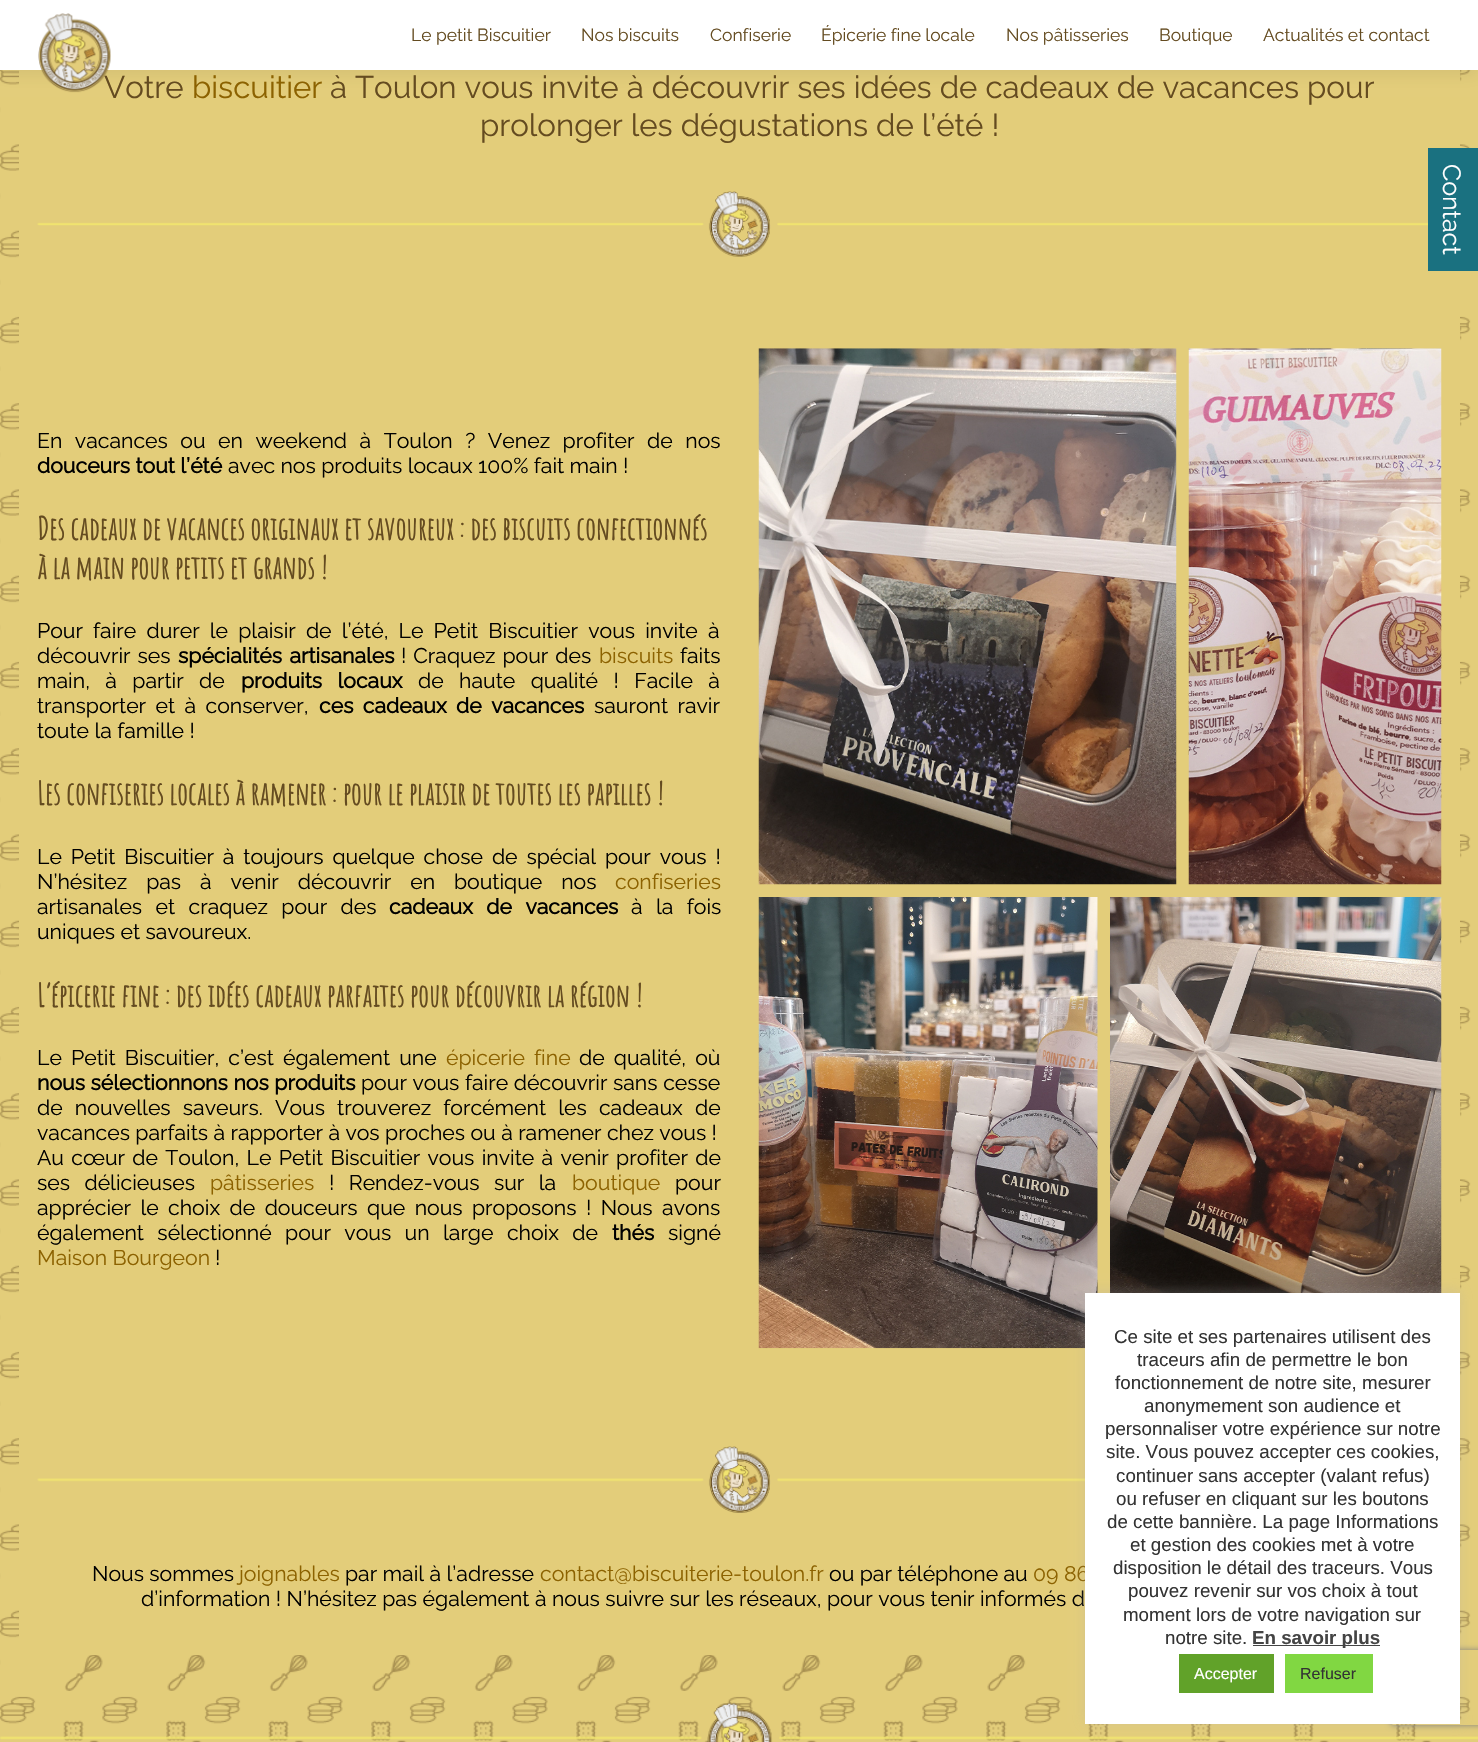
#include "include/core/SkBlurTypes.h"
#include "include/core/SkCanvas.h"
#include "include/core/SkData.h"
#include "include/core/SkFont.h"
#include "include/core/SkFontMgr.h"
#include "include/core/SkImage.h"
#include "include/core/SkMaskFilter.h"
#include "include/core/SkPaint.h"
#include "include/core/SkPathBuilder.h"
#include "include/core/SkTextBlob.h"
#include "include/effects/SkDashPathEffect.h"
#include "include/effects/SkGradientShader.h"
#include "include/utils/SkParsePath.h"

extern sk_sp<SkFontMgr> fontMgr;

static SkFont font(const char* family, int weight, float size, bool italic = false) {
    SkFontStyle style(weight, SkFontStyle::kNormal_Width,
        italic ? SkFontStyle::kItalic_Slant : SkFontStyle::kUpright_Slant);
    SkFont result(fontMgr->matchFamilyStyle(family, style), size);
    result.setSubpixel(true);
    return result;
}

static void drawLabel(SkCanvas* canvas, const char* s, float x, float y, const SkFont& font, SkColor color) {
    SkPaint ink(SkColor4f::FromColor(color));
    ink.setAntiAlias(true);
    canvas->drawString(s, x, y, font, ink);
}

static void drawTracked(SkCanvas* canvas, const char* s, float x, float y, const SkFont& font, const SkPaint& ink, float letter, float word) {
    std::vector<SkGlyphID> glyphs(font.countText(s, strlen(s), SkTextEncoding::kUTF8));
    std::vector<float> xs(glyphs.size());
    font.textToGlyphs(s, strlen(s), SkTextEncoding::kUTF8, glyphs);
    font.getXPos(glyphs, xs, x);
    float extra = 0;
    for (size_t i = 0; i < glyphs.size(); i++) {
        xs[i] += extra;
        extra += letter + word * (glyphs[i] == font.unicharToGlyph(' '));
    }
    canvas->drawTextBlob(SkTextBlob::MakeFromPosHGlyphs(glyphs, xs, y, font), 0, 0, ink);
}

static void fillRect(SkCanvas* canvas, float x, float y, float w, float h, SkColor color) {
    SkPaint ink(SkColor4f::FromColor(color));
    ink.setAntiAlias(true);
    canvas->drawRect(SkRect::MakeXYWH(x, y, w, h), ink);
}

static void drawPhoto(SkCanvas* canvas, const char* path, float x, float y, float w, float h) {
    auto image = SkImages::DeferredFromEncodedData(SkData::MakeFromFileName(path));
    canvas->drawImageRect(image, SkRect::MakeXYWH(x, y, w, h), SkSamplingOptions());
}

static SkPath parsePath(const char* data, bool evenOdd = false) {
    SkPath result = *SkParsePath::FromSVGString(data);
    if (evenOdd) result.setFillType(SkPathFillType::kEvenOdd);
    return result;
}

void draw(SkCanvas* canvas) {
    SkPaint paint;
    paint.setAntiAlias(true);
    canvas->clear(0xFFE3CD7A);
    drawPhoto(canvas, "assets/img1.png", 0, 70, 1471, 1672);
    fillRect(canvas, 19, 70, 1441, 1323, 0xFFE3CD7A);
    paint.setColor(0x14323232);
    paint.setMaskFilter(SkMaskFilter::MakeBlur(kNormal_SkBlurStyle, 7));
    canvas->drawRect(SkRect::MakeXYWH(0, 6, 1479, 70), paint);
    paint.setMaskFilter(nullptr);
    fillRect(canvas, 0, 0, 1478, 70, 0xFFFFFFFF);
    SkFont font1 = font("Raleway", 100, 31.25f);
    drawLabel(canvas, "Votre", 104, 98, font1, 0xFF644B20);
    drawPhoto(canvas, "assets/img2.png", 38, 13, 73, 80);
    SkFont font2 = font("Raleway", 100, 17.5f);
    drawLabel(canvas, "Le petit Biscuitier", 411, 41, font2, 0xFF644B20);
    drawLabel(canvas, "Nos biscuits", 581, 41, font2, 0xFF644B20);
    drawLabel(canvas, "Confiserie", 710, 41, font2, 0xFF644B20);
    drawLabel(canvas, "Épicerie fine locale", 821, 41, font2, 0xFF644B20);
    drawLabel(canvas, "Nos pâtisseries", 1006, 41, font2, 0xFF644B20);
    drawLabel(canvas, "Boutique", 1159, 41, font2, 0xFF644B20);
    drawLabel(canvas, "Actualités et contact", 1263, 41, font2, 0xFF644B20);
    drawLabel(canvas, "biscuitier", 192, 98, font1, 0xFF8C6200);
    drawLabel(canvas, "à Toulon vous invite à découvrir ses idées de cadeaux de vacances pour", 330, 98, font1, 0xFF644B20);
    drawLabel(canvas, "prolonger les dégustations de l’été !", 480, 136, font1, 0xFF644B20);
    drawPhoto(canvas, "assets/img3.png", 37, 191, 1391, 66);
    SkFont font3 = font("Raleway", 100, 21.25f);
    paint.setColor(0xFF000000);
    drawTracked(canvas, "En vacances ou en weekend à Toulon ? Venez profiter de nos", 37, 448, font3, paint, 0, 7.1f);
    SkFont font4 = font("Raleway", 700, 21.25f);
    drawLabel(canvas, "douceurs tout l’été", 37, 473, font4, 0xFF000000);
    drawLabel(canvas, "avec nos produits locaux 100% fait main !", 228, 473, font3, 0xFF000000);
    SkFont font5 = font("Amatic SC", 700, 31.25f);
    drawLabel(canvas, "Des cadeaux de vacances originaux et savoureux : des biscuits confectionnés", 37, 540, font5, 0xFF644B20);
    drawLabel(canvas, "à la main pour petits et grands !", 37, 579, font5, 0xFF644B20);
    drawTracked(canvas, "Pour faire durer le plaisir de l’été, Le Petit Biscuitier vous invite à", 37, 638, font3, paint, 0, 4.75f);
    drawTracked(canvas, "découvrir ses", 37, 663, font3, paint, 0, 1.5f);
    drawTracked(canvas, "spécialités artisanales", 178, 663, font4, paint, 0, 2);
    drawTracked(canvas, "! Craquez pour des", 401, 663, font3, paint, 0, 1.5f);
    drawLabel(canvas, "biscuits", 599, 663, font3, 0xFF8C6200);
    drawLabel(canvas, "faits", 680, 663, font3, 0xFF000000);
    drawTracked(canvas, "main, à partir de", 37, 688, font3, paint, 0, 10);
    drawTracked(canvas, "produits locaux", 241, 688, font4, paint, 0, 10);
    drawTracked(canvas, "de haute qualité ! Facile à", 418, 688, font3, paint, 0, 10);
    drawTracked(canvas, "transporter et à conserver,", 37, 713, font3, paint, 0, 4);
    drawTracked(canvas, "ces cadeaux de vacances", 319, 713, font4, paint, 0, 4);
    drawTracked(canvas, "sauront ravir", 594, 713, font3, paint, 0, 4);
    drawLabel(canvas, "toute la famille !", 37, 738, font3, 0xFF000000);
    drawLabel(canvas, "Les confiseries locales à ramener : pour le plaisir de toutes les papilles !", 37, 805, font5, 0xFF644B20);
    drawTracked(canvas, "Le Petit Biscuitier à toujours quelque chose de spécial pour vous !", 37, 864, font3, paint, 0, 3.5f);
    drawTracked(canvas, "N’hésitez pas à venir découvrir en boutique nos", 37, 889, font3, paint, 0, 13.5f);
    drawLabel(canvas, "confiseries", 615, 889, font3, 0xFF8C6200);
    drawTracked(canvas, "artisanales et craquez pour des", 37, 914, font3, paint, 0, 8);
    drawTracked(canvas, "cadeaux de vacances", 389, 914, font4, paint, 0, 8);
    drawTracked(canvas, "à la fois", 631, 914, font3, paint, 0, 8);
    drawLabel(canvas, "uniques et savoureux.", 37, 939, font3, 0xFF000000);
    drawLabel(canvas, "L’épicerie fine : des idées cadeaux parfaites pour découvrir la région !", 37, 1007, font5, 0xFF644B20);
    drawTracked(canvas, "Le Petit Biscuitier, c’est également une", 37, 1065, font3, paint, 0, 3.75f);
    paint.setColor(0xFF8C6200);
    drawTracked(canvas, "épicerie fine", 446, 1065, font3, paint, 0, 3.75f);
    paint.setColor(0xFF000000);
    drawTracked(canvas, "de qualité, où", 579, 1065, font3, paint, 0, 3.75f);
    drawTracked(canvas, "nous sélectionnons nos produits", 37, 1090, font4, paint, 0, 0.25f);
    drawTracked(canvas, "pour vous faire découvrir sans cesse", 361, 1090, font3, paint, 0, 0.25f);
    drawTracked(canvas, "de nouvelles saveurs. Vous trouverez forcément les cadeaux de", 37, 1115, font3, paint, 0, 6.75f);
    drawLabel(canvas, "vacances parfaits à rapporter à vos proches ou à ramener chez vous !", 37, 1140, font3, 0xFF000000);
    drawTracked(canvas, "Au cœur de Toulon, Le Petit Biscuitier vous invite à venir profiter de", 37, 1165, font3, paint, 0, 1.9f);
    drawTracked(canvas, "ses délicieuses", 37, 1190, font3, paint, 0, 9);
    drawLabel(canvas, "pâtisseries", 210, 1190, font3, 0xFF8C6200);
    drawTracked(canvas, "! Rendez-vous sur la", 329, 1190, font3, paint, 0, 9);
    drawLabel(canvas, "boutique", 572, 1190, font3, 0xFF8C6200);
    drawLabel(canvas, "pour", 675, 1190, font3, 0xFF000000);
    drawTracked(canvas, "apprécier le choix de douceurs que nous proposons ! Nous avons", 37, 1215, font3, paint, 0, 4);
    drawTracked(canvas, "également sélectionné pour vous un large choix de", 37, 1240, font3, paint, 0, 8);
    drawLabel(canvas, "thés", 612, 1240, font4, 0xFF000000);
    drawLabel(canvas, "signé", 668, 1240, font3, 0xFF000000);
    drawLabel(canvas, "Maison Bourgeon", 37, 1265, font3, 0xFF8C6200);
    drawLabel(canvas, "!", 215, 1265, font3, 0xFF000000);
    drawPhoto(canvas, "assets/img4.png", 758, 348, 419, 537);
    drawPhoto(canvas, "assets/img5.png", 1188, 348, 254, 537);
    drawPhoto(canvas, "assets/img6.png", 758, 897, 340, 452);
    drawPhoto(canvas, "assets/img7.png", 1110, 897, 332, 396);
    fillRect(canvas, 19, 1393, 1042, 262, 0xFFE3CD7A);
    drawPhoto(canvas, "assets/img8.png", 37, 1446, 1048, 67);
    drawLabel(canvas, "Nous sommes", 92, 1581, font3, 0xFF000000);
    drawLabel(canvas, "joignables", 239, 1581, font3, 0xFF8C6200);
    drawLabel(canvas, "par mail à l’adresse", 345, 1581, font3, 0xFF000000);
    drawLabel(canvas, "contact@biscuiterie-toulon.fr", 540, 1581, font3, 0xFF8C6200);
    drawLabel(canvas, "ou par téléphone au", 829, 1581, font3, 0xFF000000);
    drawLabel(canvas, "09 86", 1033, 1581, font3, 0xFF8C6200);
    drawLabel(canvas, "d’information ! N’hésitez pas également à nous suivre sur les réseaux, pour vous tenir informés d", 141, 1606, font3, 0xFF000000);
    drawPhoto(canvas, "assets/img9.png", 0, 1702, 1478, 40);
    fillRect(canvas, 1428, 148, 50, 123, 0xFF1A7180);
    SkFont font6 = font("Raleway", 100, 25);
    canvas->save();
    canvas->rotate(90, 1443, 164);
    drawLabel(canvas, "Contact", 1443, 164, font6, 0xFFFFFFFF);
    canvas->restore();
    paint.setColor(0x4DACABAB);
    paint.setMaskFilter(SkMaskFilter::MakeBlur(kNormal_SkBlurStyle, 6));
    canvas->drawRect(SkRect::MakeXYWH(1085, 1291, 375, 432), paint);
    paint.setMaskFilter(nullptr);
    canvas->save();
    canvas->clipPath(parsePath("M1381 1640H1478V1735H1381ZM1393.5 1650H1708.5C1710 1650 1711 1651 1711 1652.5V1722.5C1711 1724 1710 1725 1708.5 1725H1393.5C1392 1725 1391 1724 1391 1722.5V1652.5C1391 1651 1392 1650 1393.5 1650Z", true), true);
    paint.setColor(0xFF808080);
    paint.setMaskFilter(SkMaskFilter::MakeBlur(kNormal_SkBlurStyle, 3));
    canvas->drawRoundRect(SkRect::MakeXYWH(1391, 1650, 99, 75), 2.5f, 2.5f, paint);
    paint.setMaskFilter(nullptr);
    canvas->restore();
    fillRect(canvas, 1085, 1293, 375, 431, 0xFFFFFFFF);
    SkFont font7 = font("Liberation Sans", 400, 18.75f);
    drawLabel(canvas, "Ce site et ses partenaires utilisent des", 1114, 1343, font7, 0xFF333333);
    drawLabel(canvas, "traceurs afin de permettre le bon", 1137, 1366, font7, 0xFF333333);
    drawLabel(canvas, "fonctionnement de notre site, mesurer", 1115, 1389, font7, 0xFF333333);
    drawLabel(canvas, "anonymement son audience et", 1144, 1412, font7, 0xFF333333);
    drawLabel(canvas, "personnaliser votre expérience sur notre", 1105, 1435, font7, 0xFF333333);
    drawLabel(canvas, "site. Vous pouvez accepter ces cookies,", 1106, 1458, font7, 0xFF333333);
    drawLabel(canvas, "continuer sans accepter (valant refus)", 1116, 1482, font7, 0xFF333333);
    drawLabel(canvas, "ou refuser en cliquant sur les boutons", 1116, 1505, font7, 0xFF333333);
    drawLabel(canvas, "de cette bannière. La page Informations", 1107, 1528, font7, 0xFF333333);
    drawLabel(canvas, "et gestion des cookies met à votre", 1130, 1551, font7, 0xFF333333);
    drawLabel(canvas, "disposition le détail des traceurs. Vous", 1113, 1574, font7, 0xFF333333);
    drawLabel(canvas, "pouvez revenir sur vos choix à tout", 1128, 1597, font7, 0xFF333333);
    drawLabel(canvas, "moment lors de votre navigation sur", 1123, 1621, font7, 0xFF333333);
    drawLabel(canvas, "notre site.", 1165, 1644, font7, 0xFF333333);
    fillRect(canvas, 1253, 1645, 127, 1, 0xFF444444);
    SkFont font8 = font("Liberation Sans", 700, 18.75f);
    drawLabel(canvas, "En savoir plus", 1252, 1644, font8, 0xFF444444);
    fillRect(canvas, 1179, 1654, 95, 39, 0xFF61A229);
    SkFont font9 = font("Liberation Sans", 400, 16);
    drawLabel(canvas, "Accepter", 1194, 1679, font9, 0xFFFFFFFF);
    fillRect(canvas, 1285, 1654, 88, 39, 0xFF81D742);
    drawLabel(canvas, "Refuser", 1300, 1679, font9, 0xFF333333);
}
